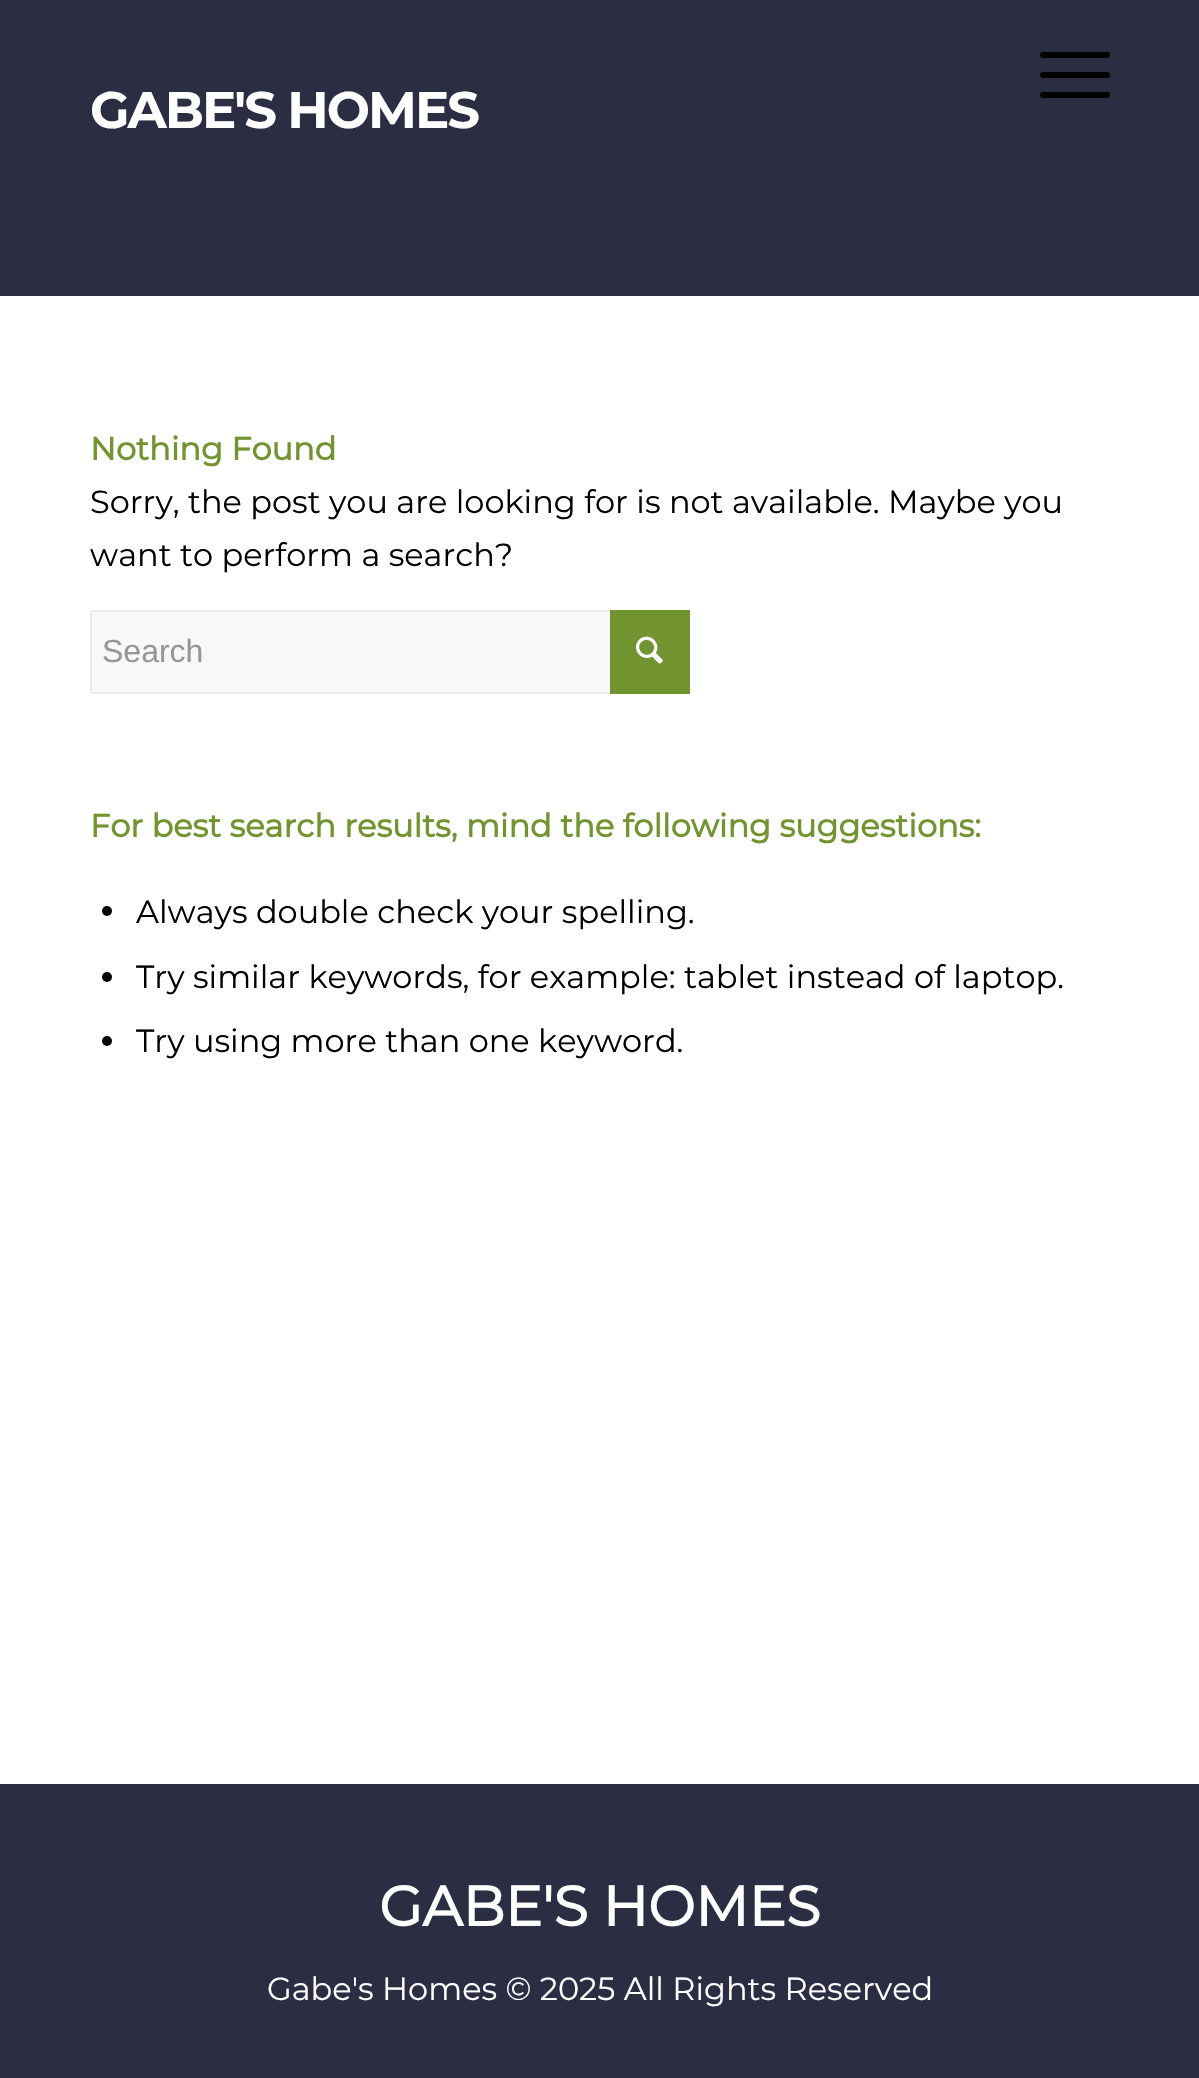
#include "include/core/SkBlurTypes.h"
#include "include/core/SkCanvas.h"
#include "include/core/SkData.h"
#include "include/core/SkFont.h"
#include "include/core/SkFontMgr.h"
#include "include/core/SkImage.h"
#include "include/core/SkMaskFilter.h"
#include "include/core/SkPaint.h"
#include "include/core/SkPathBuilder.h"
#include "include/core/SkTextBlob.h"
#include "include/effects/SkDashPathEffect.h"
#include "include/effects/SkGradientShader.h"
#include "include/utils/SkParsePath.h"

extern sk_sp<SkFontMgr> fontMgr;

static SkFont font(const char* family, int weight, float size, bool italic = false) {
    SkFontStyle style(weight, SkFontStyle::kNormal_Width,
        italic ? SkFontStyle::kItalic_Slant : SkFontStyle::kUpright_Slant);
    SkFont result(fontMgr->matchFamilyStyle(family, style), size);
    result.setSubpixel(true);
    return result;
}

static void drawLabel(SkCanvas* canvas, const char* s, float x, float y, const SkFont& font, SkColor color) {
    SkPaint ink(SkColor4f::FromColor(color));
    ink.setAntiAlias(true);
    canvas->drawString(s, x, y, font, ink);
}

static void drawTracked(SkCanvas* canvas, const char* s, float x, float y, const SkFont& font, const SkPaint& ink, float letter, float word) {
    std::vector<SkGlyphID> glyphs(font.countText(s, strlen(s), SkTextEncoding::kUTF8));
    std::vector<float> xs(glyphs.size());
    font.textToGlyphs(s, strlen(s), SkTextEncoding::kUTF8, glyphs);
    font.getXPos(glyphs, xs, x);
    float extra = 0;
    for (size_t i = 0; i < glyphs.size(); i++) {
        xs[i] += extra;
        extra += letter + word * (glyphs[i] == font.unicharToGlyph(' '));
    }
    canvas->drawTextBlob(SkTextBlob::MakeFromPosHGlyphs(glyphs, xs, y, font), 0, 0, ink);
}

static void fillRect(SkCanvas* canvas, float x, float y, float w, float h, SkColor color) {
    SkPaint ink(SkColor4f::FromColor(color));
    ink.setAntiAlias(true);
    canvas->drawRect(SkRect::MakeXYWH(x, y, w, h), ink);
}

static void fillRRect(SkCanvas* canvas, float x, float y, float w, float h, float radius, SkColor color) {
    SkPaint ink(SkColor4f::FromColor(color));
    ink.setAntiAlias(true);
    canvas->drawRoundRect(SkRect::MakeXYWH(x, y, w, h), radius, radius, ink);
}

static void drawPhoto(SkCanvas* canvas, const char* path, float x, float y, float w, float h) {
    auto image = SkImages::DeferredFromEncodedData(SkData::MakeFromFileName(path));
    canvas->drawImageRect(image, SkRect::MakeXYWH(x, y, w, h), SkSamplingOptions());
}

void draw(SkCanvas* canvas) {
    SkPaint paint;
    paint.setAntiAlias(true);
    canvas->clear(0xFF2B2D42);
    fillRRect(canvas, 1040, 72, 70, 6, 3, 0xFF000000);
    fillRRect(canvas, 1040, 52, 70, 6, 3, 0xFF000000);
    fillRRect(canvas, 1040, 92, 70, 6, 3, 0xFF000000);
    SkFont font1 = font("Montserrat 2", 700, 51.25f);
    paint.setColor(0xFFFFFFFF);
    drawTracked(canvas, "GABE'S HOMES", 90, 128, font1, paint, -2, 0);
    fillRect(canvas, 0, 296, 1199, 1488, 0xFFFFFFFF);
    SkFont font2 = font("Montserrat", 700, 32);
    drawLabel(canvas, "Nothing Found", 90, 460, font2, 0xFF719430);
    SkFont font3 = font("Montserrat", 100, 32);
    drawLabel(canvas, "Sorry, the post you are looking for is not available. Maybe you", 90, 513, font3, 0xFF000000);
    drawLabel(canvas, "want to perform a search?", 90, 566, font3, 0xFF000000);
    fillRect(canvas, 92, 612, 518, 80, 0xFFF8F8F8);
    paint.setStroke(true);
    paint.setStrokeWidth(2);
    paint.setColor(0xFFEBEBEB);
    canvas->drawRect(SkRect::MakeXYWH(91, 611, 598, 82), paint);
    SkFont font4 = font("Liberation Sans", 400, 32);
    drawLabel(canvas, "Search", 102, 662, font4, 0xFF969696);
    fillRect(canvas, 610, 610, 80, 84, 0xFF719430);
    drawPhoto(canvas, "assets/img1.png", 636, 636, 27, 28);
    drawLabel(canvas, "For best search results, mind the following suggestions:", 90, 837, font2, 0xFF719430);
    paint.setStroke(false);
    paint.setColor(0xFF000000);
    canvas->drawCircle(107, 911, 5, paint);
    drawLabel(canvas, "Always double check your spelling.", 136, 923, font3, 0xFF000000);
    canvas->drawCircle(107, 977, 5, paint);
    drawLabel(canvas, "Try similar keywords, for example: tablet instead of laptop.", 136, 988, font3, 0xFF000000);
    canvas->drawCircle(107, 1041, 5, paint);
    drawLabel(canvas, "Try using more than one keyword.", 136, 1052, font3, 0xFF000000);
    SkFont font5 = font("Montserrat", 700, 56);
    drawLabel(canvas, "GABE'S HOMES", 379, 1926, font5, 0xFFFFFFFF);
    drawLabel(canvas, "Gabe's Homes © 2025 All Rights Reserved", 267, 2000, font3, 0xFFFFFFFF);
}
